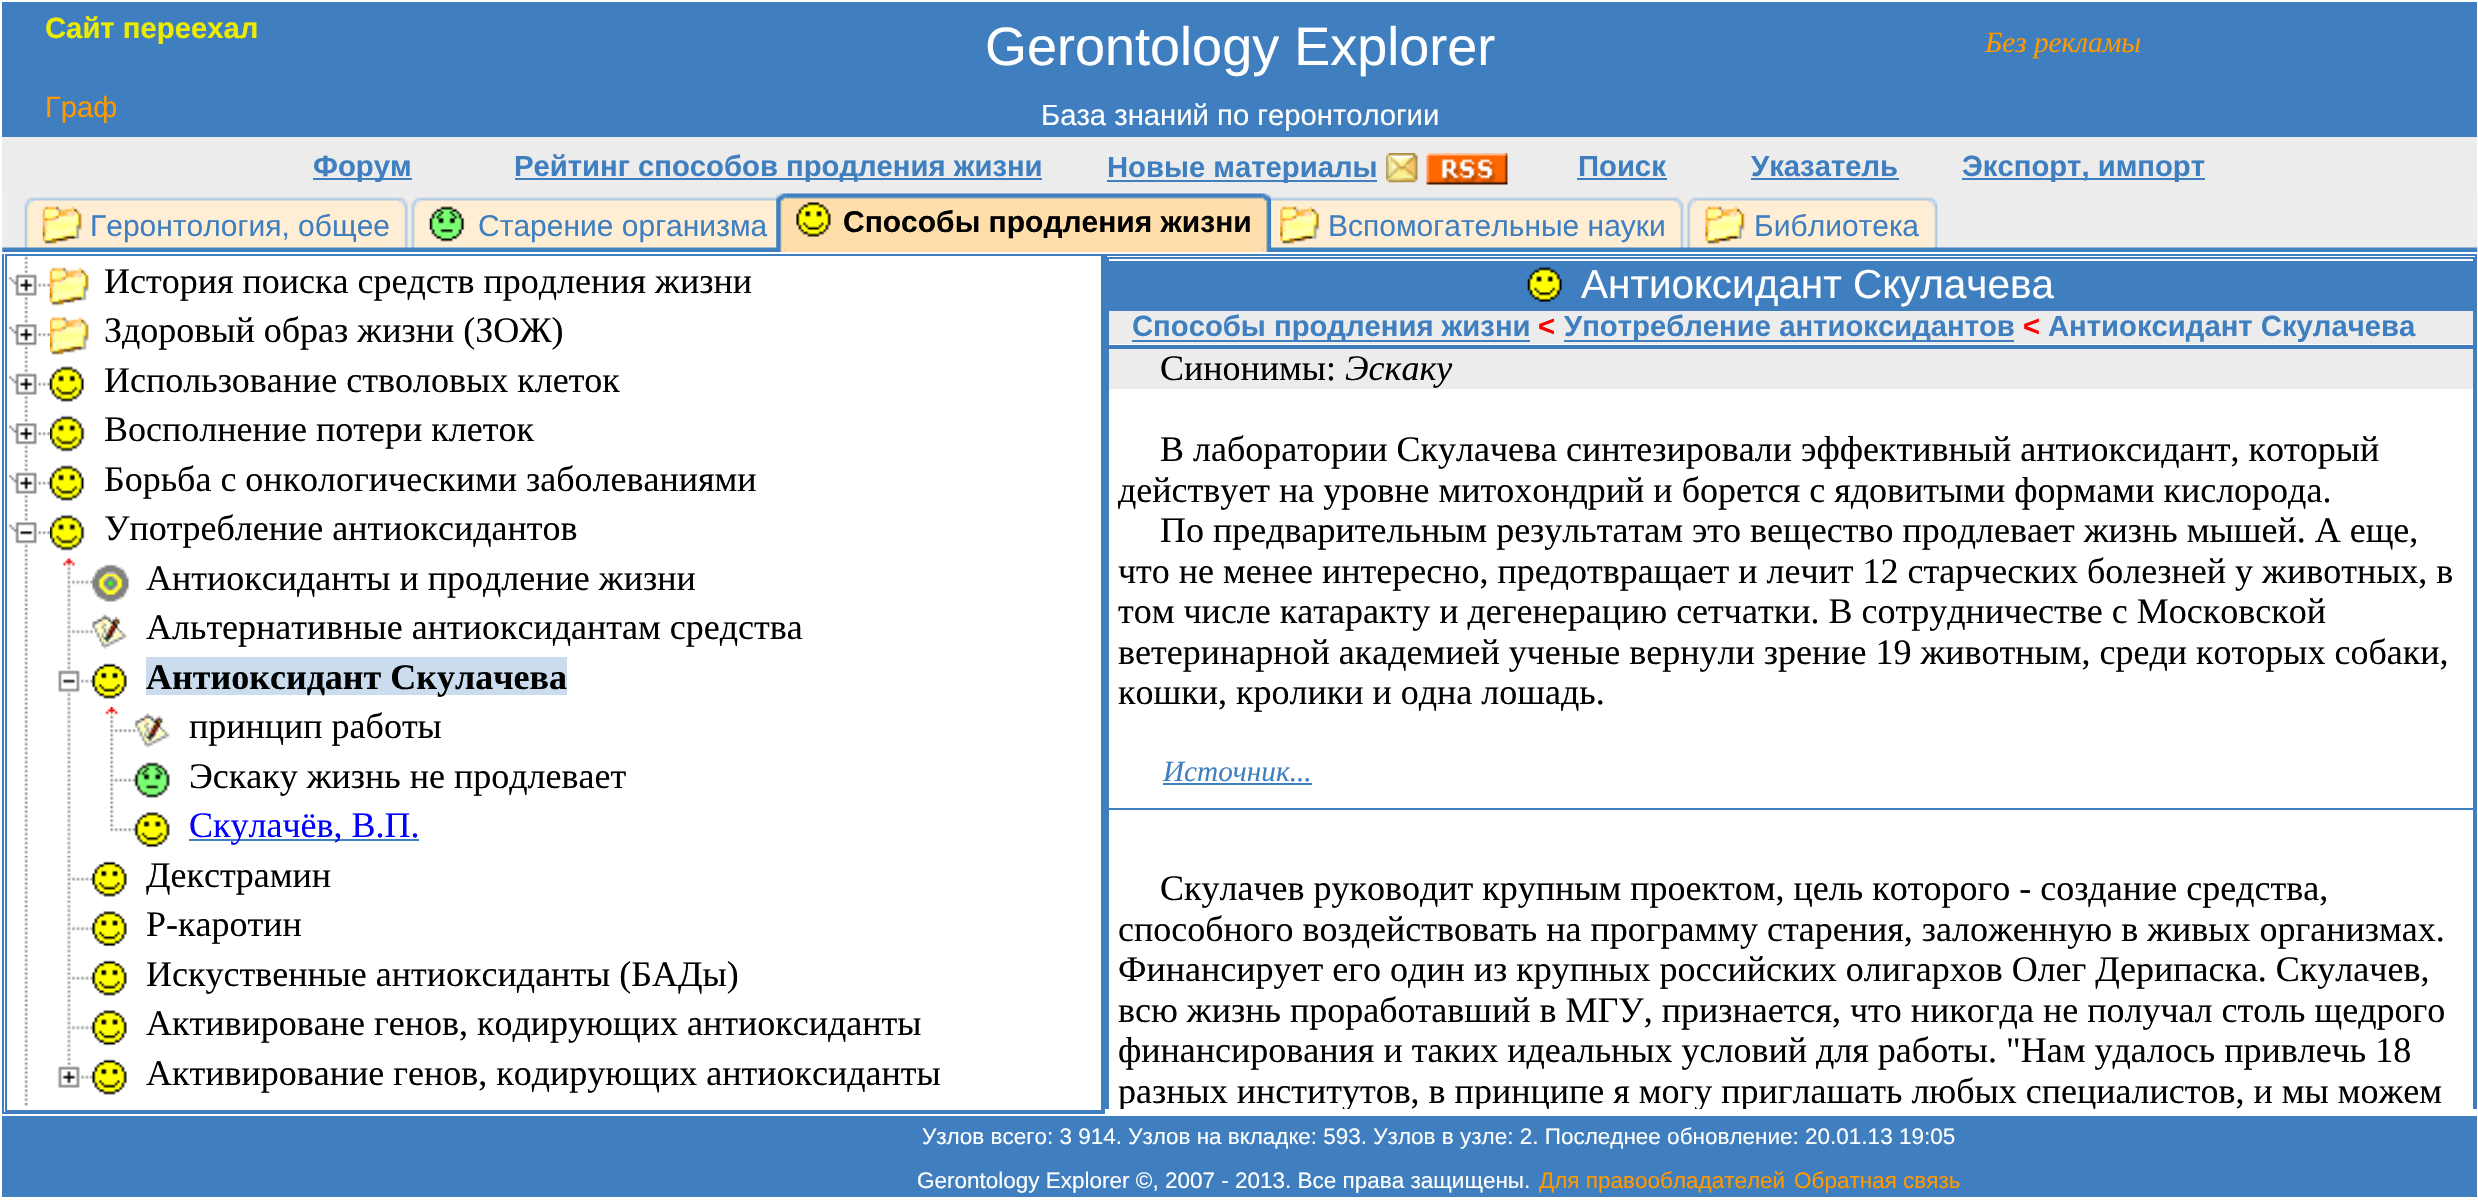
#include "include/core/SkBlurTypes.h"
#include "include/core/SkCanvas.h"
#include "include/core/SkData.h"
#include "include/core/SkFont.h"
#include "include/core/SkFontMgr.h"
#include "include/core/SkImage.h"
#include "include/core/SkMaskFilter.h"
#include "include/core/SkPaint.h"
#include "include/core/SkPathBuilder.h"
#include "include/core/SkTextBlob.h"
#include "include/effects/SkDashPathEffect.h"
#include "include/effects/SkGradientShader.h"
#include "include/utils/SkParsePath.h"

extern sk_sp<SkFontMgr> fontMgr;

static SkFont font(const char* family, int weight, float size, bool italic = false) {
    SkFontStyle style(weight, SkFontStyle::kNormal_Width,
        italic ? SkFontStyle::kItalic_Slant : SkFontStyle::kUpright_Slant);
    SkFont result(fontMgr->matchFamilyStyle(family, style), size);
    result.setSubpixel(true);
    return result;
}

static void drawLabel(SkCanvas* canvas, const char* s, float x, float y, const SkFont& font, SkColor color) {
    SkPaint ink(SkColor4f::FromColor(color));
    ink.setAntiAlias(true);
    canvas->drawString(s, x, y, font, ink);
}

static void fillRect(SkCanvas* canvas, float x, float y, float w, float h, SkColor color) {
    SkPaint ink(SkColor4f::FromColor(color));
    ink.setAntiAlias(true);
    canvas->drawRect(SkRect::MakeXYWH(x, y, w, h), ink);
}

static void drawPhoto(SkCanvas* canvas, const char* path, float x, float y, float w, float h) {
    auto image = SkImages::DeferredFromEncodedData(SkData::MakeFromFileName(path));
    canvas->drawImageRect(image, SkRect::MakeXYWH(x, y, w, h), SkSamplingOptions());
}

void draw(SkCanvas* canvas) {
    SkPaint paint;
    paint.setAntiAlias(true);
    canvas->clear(0xFFFFFFFF);
    fillRect(canvas, 2, 2, 2475, 135, 0xFF3F7FBF);
    SkFont font1 = font("Liberation Sans", 700, 29.25f);
    drawLabel(canvas, "Сайт переехал", 45, 38, font1, 0xFFECEC00);
    SkFont font2 = font("Liberation Sans", 400, 54);
    drawLabel(canvas, "Gerontology Explorer", 985, 65, font2, 0xFFFFFFFF);
    SkFont font3 = font("Liberation Sans", 400, 29.25f);
    drawLabel(canvas, "Граф", 45, 117, font3, 0xFFFF9900);
    drawLabel(canvas, "База знаний по геронтологии", 1041, 125, font3, 0xFFFFFFFF);
    fillRect(canvas, 2, 137, 2475, 57, 0xFFECECEC);
    fillRect(canvas, 313, 178, 99, 2, 0xFF3F7FBF);
    drawLabel(canvas, "Форум", 313, 176, font1, 0xFF3F7FBF);
    fillRect(canvas, 515, 178, 527, 2, 0xFF3F7FBF);
    drawLabel(canvas, "Рейтинг способов продления жизни", 514, 176, font1, 0xFF3F7FBF);
    fillRect(canvas, 1107, 180, 270, 2, 0xFF3F7FBF);
    drawLabel(canvas, "Новые материалы", 1107, 177, font1, 0xFF3F7FBF);
    drawPhoto(canvas, "assets/img1.png", 1386, 153, 32, 30);
    drawPhoto(canvas, "assets/img2.png", 1426, 153, 82, 32);
    drawLabel(canvas, "Поиск", 1578, 176, font1, 0xFF3F7FBF);
    fillRect(canvas, 1577, 178, 90, 2, 0xFF3F7FBF);
    drawLabel(canvas, "Указатель", 1751, 176, font1, 0xFF3F7FBF);
    fillRect(canvas, 1751, 178, 148, 2, 0xFF3F7FBF);
    fillRect(canvas, 1962, 178, 243, 2, 0xFF3F7FBF);
    drawLabel(canvas, "Экспорт, импорт", 1962, 176, font1, 0xFF3F7FBF);
    drawPhoto(canvas, "assets/img3.png", 2, 194, 2476, 58);
    drawPhoto(canvas, "assets/img4.png", 24, 194, 10, 55);
    drawPhoto(canvas, "assets/img5.png", 33, 194, 366, 58);
    drawPhoto(canvas, "assets/img6.png", 42, 206, 40, 38);
    SkFont font4 = font("Liberation Sans", 400, 30);
    drawLabel(canvas, "Геронтология, общее", 90, 236, font4, 0xFF3F7FBF);
    drawPhoto(canvas, "assets/img7.png", 398, 194, 23, 54);
    drawPhoto(canvas, "assets/img8.png", 420, 194, 357, 58);
    drawPhoto(canvas, "assets/img9.png", 429, 206, 36, 36);
    drawLabel(canvas, "Старение организма", 478, 236, font4, 0xFF3F7FBF);
    drawPhoto(canvas, "assets/img10.png", 776, 193, 10, 59);
    drawPhoto(canvas, "assets/img11.png", 785, 193, 478, 59);
    drawPhoto(canvas, "assets/img12.png", 796, 202, 35, 35);
    SkFont font5 = font("Liberation Sans", 700, 30);
    drawLabel(canvas, "Способы продления жизни", 843, 232, font5, 0xFF000000);
    drawPhoto(canvas, "assets/img13.png", 1262, 193, 10, 59);
    drawPhoto(canvas, "assets/img14.png", 1271, 194, 403, 58);
    drawPhoto(canvas, "assets/img15.png", 1280, 206, 40, 38);
    drawLabel(canvas, "Вспомогательные науки", 1328, 236, font4, 0xFF3F7FBF);
    drawPhoto(canvas, "assets/img16.png", 1674, 194, 23, 54);
    drawPhoto(canvas, "assets/img17.png", 1696, 194, 233, 58);
    drawPhoto(canvas, "assets/img18.png", 1705, 206, 40, 38);
    drawLabel(canvas, "Библиотека", 1754, 236, font4, 0xFF3F7FBF);
    drawPhoto(canvas, "assets/img19.png", 1928, 194, 10, 55);
    fillRect(canvas, 1103, 254, 2, 860, 0xFF3F7FBF);
    fillRect(canvas, 2, 1112, 1103, 2, 0xFF3F7FBF);
    fillRect(canvas, 2, 254, 2, 860, 0xFF3F7FBF);
    paint.setStroke(true);
    paint.setStrokeWidth(2);
    paint.setColor(0xFF3F7FBF);
    canvas->drawRect(SkRect::MakeXYWH(6, 255, 1096, 856), paint);
    drawPhoto(canvas, "assets/img20.png", 24, 256, 4, 4);
    drawPhoto(canvas, "assets/img21.png", 8, 261, 42, 49);
    drawPhoto(canvas, "assets/img22.png", 49, 267, 40, 39);
    SkFont font6 = font("Liberation Serif", 400, 36);
    drawLabel(canvas, "История поиска средств продления жизни", 104, 293, font6, 0xFF000000);
    drawPhoto(canvas, "assets/img23.png", 8, 311, 42, 48);
    drawPhoto(canvas, "assets/img24.png", 50, 316, 39, 39);
    drawLabel(canvas, "Здоровый образ жизни (ЗОЖ)", 104, 342, font6, 0xFF000000);
    drawPhoto(canvas, "assets/img21.png", 8, 360, 42, 49);
    drawPhoto(canvas, "assets/img25.png", 49, 366, 36, 37);
    drawLabel(canvas, "Использование стволовых клеток", 104, 392, font6, 0xFF000000);
    drawPhoto(canvas, "assets/img23.png", 8, 410, 42, 48);
    drawPhoto(canvas, "assets/img26.png", 50, 415, 35, 37);
    drawLabel(canvas, "Восполнение потери клеток", 104, 441, font6, 0xFF000000);
    drawPhoto(canvas, "assets/img21.png", 8, 459, 42, 49);
    drawPhoto(canvas, "assets/img25.png", 49, 465, 36, 37);
    drawLabel(canvas, "Борьба с онкологическими заболеваниями", 104, 491, font6, 0xFF000000);
    drawPhoto(canvas, "assets/img27.png", 8, 509, 42, 48);
    drawPhoto(canvas, "assets/img26.png", 50, 514, 35, 37);
    drawLabel(canvas, "Употребление антиоксидантов", 104, 540, font6, 0xFF000000);
    drawPhoto(canvas, "assets/img28.png", 24, 558, 4, 49);
    drawPhoto(canvas, "assets/img29.png", 62, 558, 31, 49);
    drawPhoto(canvas, "assets/img30.png", 92, 564, 38, 38);
    drawLabel(canvas, "Антиоксиданты и продление жизни", 146, 590, font6, 0xFF000000);
    drawPhoto(canvas, "assets/img31.png", 24, 608, 4, 48);
    drawPhoto(canvas, "assets/img32.png", 66, 607, 27, 50);
    drawPhoto(canvas, "assets/img33.png", 92, 614, 35, 35);
    drawLabel(canvas, "Альтернативные антиоксидантам средства", 146, 639, font6, 0xFF000000);
    drawPhoto(canvas, "assets/img28.png", 24, 657, 4, 49);
    drawPhoto(canvas, "assets/img34.png", 58, 657, 35, 49);
    drawPhoto(canvas, "assets/img35.png", 92, 663, 35, 36);
    fillRect(canvas, 146, 657, 421, 38, 0xFFCADCEE);
    SkFont font7 = font("Liberation Serif", 700, 36);
    drawLabel(canvas, "Антиоксидант Скулачева", 146, 689, font7, 0xFF000000);
    drawPhoto(canvas, "assets/img31.png", 24, 707, 4, 48);
    drawPhoto(canvas, "assets/img36.png", 66, 706, 5, 50);
    drawPhoto(canvas, "assets/img37.png", 105, 707, 31, 48);
    drawPhoto(canvas, "assets/img38.png", 134, 713, 36, 35);
    drawLabel(canvas, "принцип работы", 189, 738, font6, 0xFF000000);
    drawPhoto(canvas, "assets/img28.png", 24, 756, 4, 49);
    drawPhoto(canvas, "assets/img39.png", 66, 756, 5, 49);
    drawPhoto(canvas, "assets/img40.png", 110, 756, 26, 49);
    drawPhoto(canvas, "assets/img41.png", 134, 762, 36, 37);
    drawLabel(canvas, "Эскаку жизнь не продлевает", 189, 788, font6, 0xFF000000);
    drawPhoto(canvas, "assets/img31.png", 24, 806, 4, 48);
    drawPhoto(canvas, "assets/img36.png", 66, 805, 5, 50);
    drawPhoto(canvas, "assets/img42.png", 110, 806, 26, 26);
    drawPhoto(canvas, "assets/img43.png", 134, 812, 36, 36);
    fillRect(canvas, 189, 839, 230, 2, 0xFF3F7FBF);
    drawLabel(canvas, "Скулачёв, В.П.", 189, 837, font6, 0xFF0000FF);
    drawPhoto(canvas, "assets/img28.png", 24, 855, 4, 49);
    drawPhoto(canvas, "assets/img44.png", 66, 855, 27, 49);
    drawPhoto(canvas, "assets/img45.png", 92, 861, 35, 36);
    drawLabel(canvas, "Декстрамин", 146, 887, font6, 0xFF000000);
    drawPhoto(canvas, "assets/img46.png", 24, 905, 4, 48);
    drawPhoto(canvas, "assets/img32.png", 66, 904, 27, 50);
    drawPhoto(canvas, "assets/img47.png", 92, 911, 35, 36);
    drawLabel(canvas, "Р-каротин", 146, 936, font6, 0xFF000000);
    drawPhoto(canvas, "assets/img28.png", 24, 954, 4, 49);
    drawPhoto(canvas, "assets/img44.png", 66, 954, 27, 49);
    drawPhoto(canvas, "assets/img45.png", 92, 960, 35, 36);
    drawLabel(canvas, "Искуственные антиоксиданты (БАДы)", 146, 986, font6, 0xFF000000);
    drawPhoto(canvas, "assets/img31.png", 24, 1004, 4, 48);
    drawPhoto(canvas, "assets/img32.png", 66, 1003, 27, 50);
    drawPhoto(canvas, "assets/img48.png", 92, 1010, 35, 36);
    drawLabel(canvas, "Активироване генов, кодирующих антиоксиданты", 146, 1035, font6, 0xFF000000);
    drawPhoto(canvas, "assets/img28.png", 24, 1053, 4, 49);
    drawPhoto(canvas, "assets/img49.png", 57, 1053, 36, 35);
    drawPhoto(canvas, "assets/img45.png", 92, 1059, 35, 36);
    drawLabel(canvas, "Активирование генов, кодирующих антиоксиданты", 146, 1085, font6, 0xFF000000);
    drawPhoto(canvas, "assets/img50.png", 24, 1103, 4, 3);
    fillRect(canvas, 2, 1116, 2475, 81, 0xFF3F7FBF);
    SkFont font8 = font("Liberation Sans", 400, 22.5f);
    drawLabel(canvas, "Узлов всего: 3 914. Узлов на вкладке: 593. Узлов в узле: 2. Последнее обновление: 20.01.13 19:05", 922, 1144, font8, 0xFFFFFFFF);
    drawLabel(canvas, "Gerontology Explorer ©, 2007 - 2013. Все права защищены.", 917, 1188, font8, 0xFFFFFFFF);
    canvas->save();
    canvas->clipRect(SkRect::MakeXYWH(1105, 254, 1372, 855));
    canvas->drawRect(SkRect::MakeXYWH(1106, 255, 1370, 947), paint);
    canvas->restore();
    canvas->drawRect(SkRect::MakeXYWH(1108, 258, 1366, 88), paint);
    fillRect(canvas, 1109, 261, 1364, 50, 0xFF3F7FBF);
    drawPhoto(canvas, "assets/img51.png", 1527, 267, 36, 36);
    SkFont font9 = font("Liberation Sans", 400, 40.5f);
    drawLabel(canvas, "Антиоксидант Скулачева", 1581, 298, font9, 0xFFFFFFFF);
    fillRect(canvas, 1109, 311, 1364, 33, 0xFFECECEC);
    fillRect(canvas, 1132, 340, 398, 2, 0xFF3F7FBF);
    drawLabel(canvas, "Способы продления жизни", 1132, 336, font1, 0xFF3F7FBF);
    drawLabel(canvas, "<", 1538, 336, font1, 0xFFFF0000);
    fillRect(canvas, 1564, 340, 450, 2, 0xFF3F7FBF);
    drawLabel(canvas, "Употребление антиоксидантов", 1564, 336, font1, 0xFF3F7FBF);
    drawLabel(canvas, "<", 2023, 336, font1, 0xFFFF0000);
    drawLabel(canvas, "Антиоксидант Скулачева", 2048, 336, font1, 0xFF3F7FBF);
    canvas->save();
    canvas->clipRect(SkRect::MakeXYWH(1105, 254, 1372, 855));
    canvas->drawRect(SkRect::MakeXYWH(1108, 348, 1366, 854), paint);
    canvas->restore();
    fillRect(canvas, 1109, 349, 1364, 40, 0xFFECECEC);
    drawLabel(canvas, "Синонимы:", 1160, 380, font6, 0xFF000000);
    SkFont font10 = font("Liberation Serif", 400, 36, true);
    drawLabel(canvas, "Эскаку", 1345, 380, font10, 0xFF000000);
    drawLabel(canvas, "В лаборатории Скулачева синтезировали эффективный антиоксидант, который", 1160, 461, font6, 0xFF000000);
    drawLabel(canvas, "действует на уровне митохондрий и борется с ядовитыми формами кислорода.", 1118, 502, font6, 0xFF000000);
    drawLabel(canvas, "По предварительным результатам это вещество продлевает жизнь мышей. А еще,", 1160, 542, font6, 0xFF000000);
    drawLabel(canvas, "что не менее интересно, предотвращает и лечит 12 старческих болезней у животных, в", 1118, 583, font6, 0xFF000000);
    drawLabel(canvas, "том числе катаракту и дегенерацию сетчатки. В сотрудничестве с Московской", 1118, 623, font6, 0xFF000000);
    drawLabel(canvas, "ветеринарной академией ученые вернули зрение 19 животным, среди которых собаки,", 1118, 664, font6, 0xFF000000);
    drawLabel(canvas, "кошки, кролики и одна лошадь.", 1118, 704, font6, 0xFF000000);
    SkFont font11 = font("Liberation Serif", 400, 29.25f, true);
    drawLabel(canvas, "Источник...", 1163, 781, font11, 0xFF3F7FBF);
    fillRect(canvas, 1163, 783, 149, 2, 0xFF3F7FBF);
    fillRect(canvas, 1109, 808, 1364, 2, 0xFF3F7FBF);
    drawLabel(canvas, "Скулачев руководит крупным проектом, цель которого - создание средства,", 1160, 900, font6, 0xFF000000);
    drawLabel(canvas, "способного воздействовать на программу старения, заложенную в живых организмах.", 1118, 941, font6, 0xFF000000);
    drawLabel(canvas, "Финансирует его один из крупных российских олигархов Олег Дерипаска. Скулачев,", 1118, 981, font6, 0xFF000000);
    drawLabel(canvas, "всю жизнь проработавший в МГУ, признается, что никогда не получал столь щедрого", 1118, 1022, font6, 0xFF000000);
    drawLabel(canvas, "финансирования и таких идеальных условий для работы. \"Нам удалось привлечь 18", 1118, 1062, font6, 0xFF000000);
    canvas->save();
    canvas->clipRect(SkRect::MakeXYWH(1109, 349, 1364, 760));
    drawLabel(canvas, "разных институтов, в принципе я могу приглашать любых специалистов, и мы можем", 1118, 1103, font6, 0xFF000000);
    canvas->restore();
    drawLabel(canvas, "Для правообладателей", 1539, 1188, font8, 0xFFFF9900);
    drawLabel(canvas, "Обратная связь", 1794, 1188, font8, 0xFFFF9900);
    drawLabel(canvas, "Без рекламы", 1985, 52, font11, 0xFFFF9900);
}
